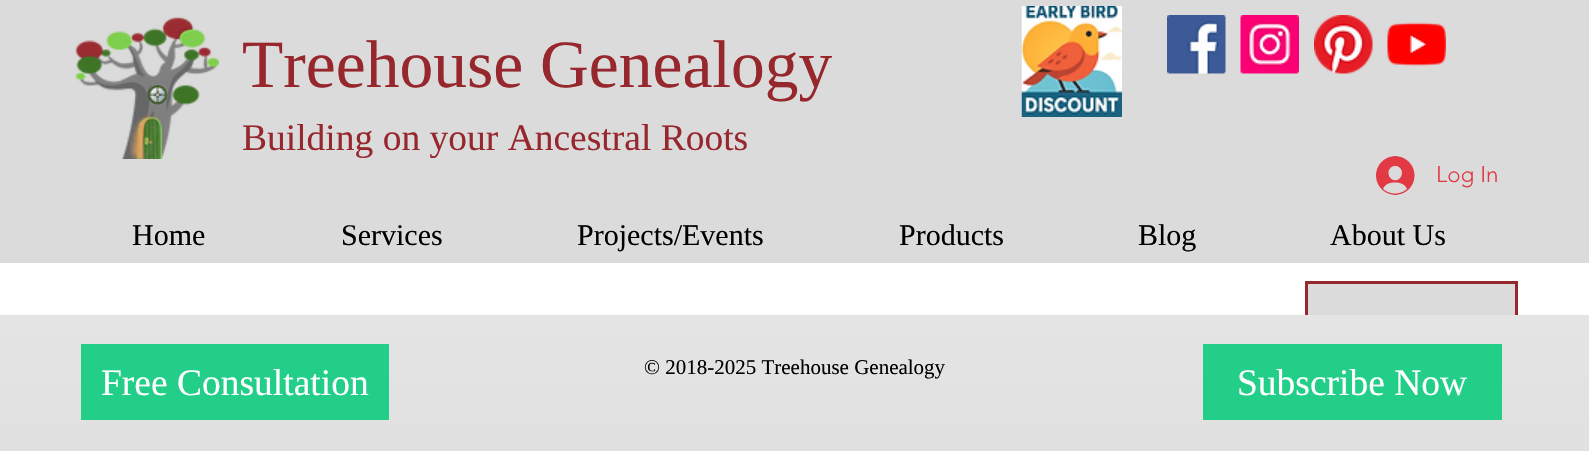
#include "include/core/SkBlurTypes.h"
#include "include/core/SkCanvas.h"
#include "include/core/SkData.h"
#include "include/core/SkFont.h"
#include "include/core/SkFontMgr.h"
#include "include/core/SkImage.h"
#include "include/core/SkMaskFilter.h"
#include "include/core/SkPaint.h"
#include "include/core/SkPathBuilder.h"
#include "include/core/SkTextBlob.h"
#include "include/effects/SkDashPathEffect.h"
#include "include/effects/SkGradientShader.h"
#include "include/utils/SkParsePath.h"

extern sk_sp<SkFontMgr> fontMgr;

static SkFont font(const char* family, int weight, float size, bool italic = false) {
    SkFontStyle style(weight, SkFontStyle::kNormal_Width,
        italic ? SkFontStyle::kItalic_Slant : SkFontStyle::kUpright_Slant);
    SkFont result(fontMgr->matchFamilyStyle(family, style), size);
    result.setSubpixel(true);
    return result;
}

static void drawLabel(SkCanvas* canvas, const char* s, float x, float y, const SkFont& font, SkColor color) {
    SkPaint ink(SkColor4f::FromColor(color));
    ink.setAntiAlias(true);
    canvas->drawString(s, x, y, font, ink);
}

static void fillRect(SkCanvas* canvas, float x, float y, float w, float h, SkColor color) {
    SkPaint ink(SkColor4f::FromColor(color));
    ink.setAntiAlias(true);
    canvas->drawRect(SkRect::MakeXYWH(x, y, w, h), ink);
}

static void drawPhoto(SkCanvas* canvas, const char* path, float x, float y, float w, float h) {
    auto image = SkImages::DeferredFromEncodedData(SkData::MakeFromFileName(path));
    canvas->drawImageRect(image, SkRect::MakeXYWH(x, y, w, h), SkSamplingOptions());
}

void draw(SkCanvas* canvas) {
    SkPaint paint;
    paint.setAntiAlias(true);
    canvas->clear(0xFFFFFFFF);
    fillRect(canvas, 0, 0, 1589, 263, 0xFFDBDBDB);
    drawPhoto(canvas, "assets/img1.png", 75, 16, 144, 143);
    SkFont font1 = font("Liberation Serif", 400, 67.5f);
    drawLabel(canvas, "Treehouse Genealogy", 242, 87, font1, 0xFF96272D);
    drawPhoto(canvas, "assets/img2.png", 1021, 6, 101, 111);
    drawPhoto(canvas, "assets/img3.png", 1167, 15, 59, 59);
    drawPhoto(canvas, "assets/img4.png", 1240, 15, 59, 59);
    drawPhoto(canvas, "assets/img5.png", 1314, 15, 59, 59);
    drawPhoto(canvas, "assets/img6.png", 1387, 22, 59, 45);
    SkFont font2 = font("Liberation Serif", 400, 37.5f);
    drawLabel(canvas, "Building on your Ancestral Roots", 242, 150, font2, 0xFF96272D);
    drawPhoto(canvas, "assets/img7.png", 1376, 156, 39, 39);
    SkFont font3 = font("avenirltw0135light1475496", 300, 22.5f);
    drawLabel(canvas, "Log In", 1436, 182, font3, 0xFFE13A44);
    SkFont font4 = font("Liberation Serif", 400, 30);
    drawLabel(canvas, "Home", 132, 245, font4, 0xFF000000);
    drawLabel(canvas, "Services", 341, 245, font4, 0xFF000000);
    drawLabel(canvas, "Projects/Events", 577, 245, font4, 0xFF000000);
    drawLabel(canvas, "Products", 899, 245, font4, 0xFF000000);
    drawLabel(canvas, "Blog", 1138, 245, font4, 0xFF000000);
    drawLabel(canvas, "About Us", 1330, 245, font4, 0xFF000000);
    fillRect(canvas, 1308, 284, 207, 31, 0xFFDBDBDB);
    paint.setStroke(true);
    paint.setStrokeWidth(3);
    paint.setColor(0xFF96272D);
    canvas->drawRect(SkRect::MakeXYWH(1306.5f, 282.5f, 210, 57), paint);
    fillRect(canvas, 0, 315, 1589, 136, 0xFFDBDBDB);
    drawPhoto(canvas, "assets/img8.png", 0, 315, 1589, 136);
    fillRect(canvas, 81, 344, 308, 76, 0xFF22CE88);
    drawLabel(canvas, "Free Consultation", 101, 395, font2, 0xFFFFFFFF);
    SkFont font5 = font("Liberation Serif", 400, 21);
    drawLabel(canvas, "© 2018-2025 Treehouse Genealogy", 644, 374, font5, 0xFF000000);
    fillRect(canvas, 1203, 344, 299, 76, 0xFF22CE88);
    drawLabel(canvas, "Subscribe Now", 1237, 395, font2, 0xFFFFFFFF);
}
